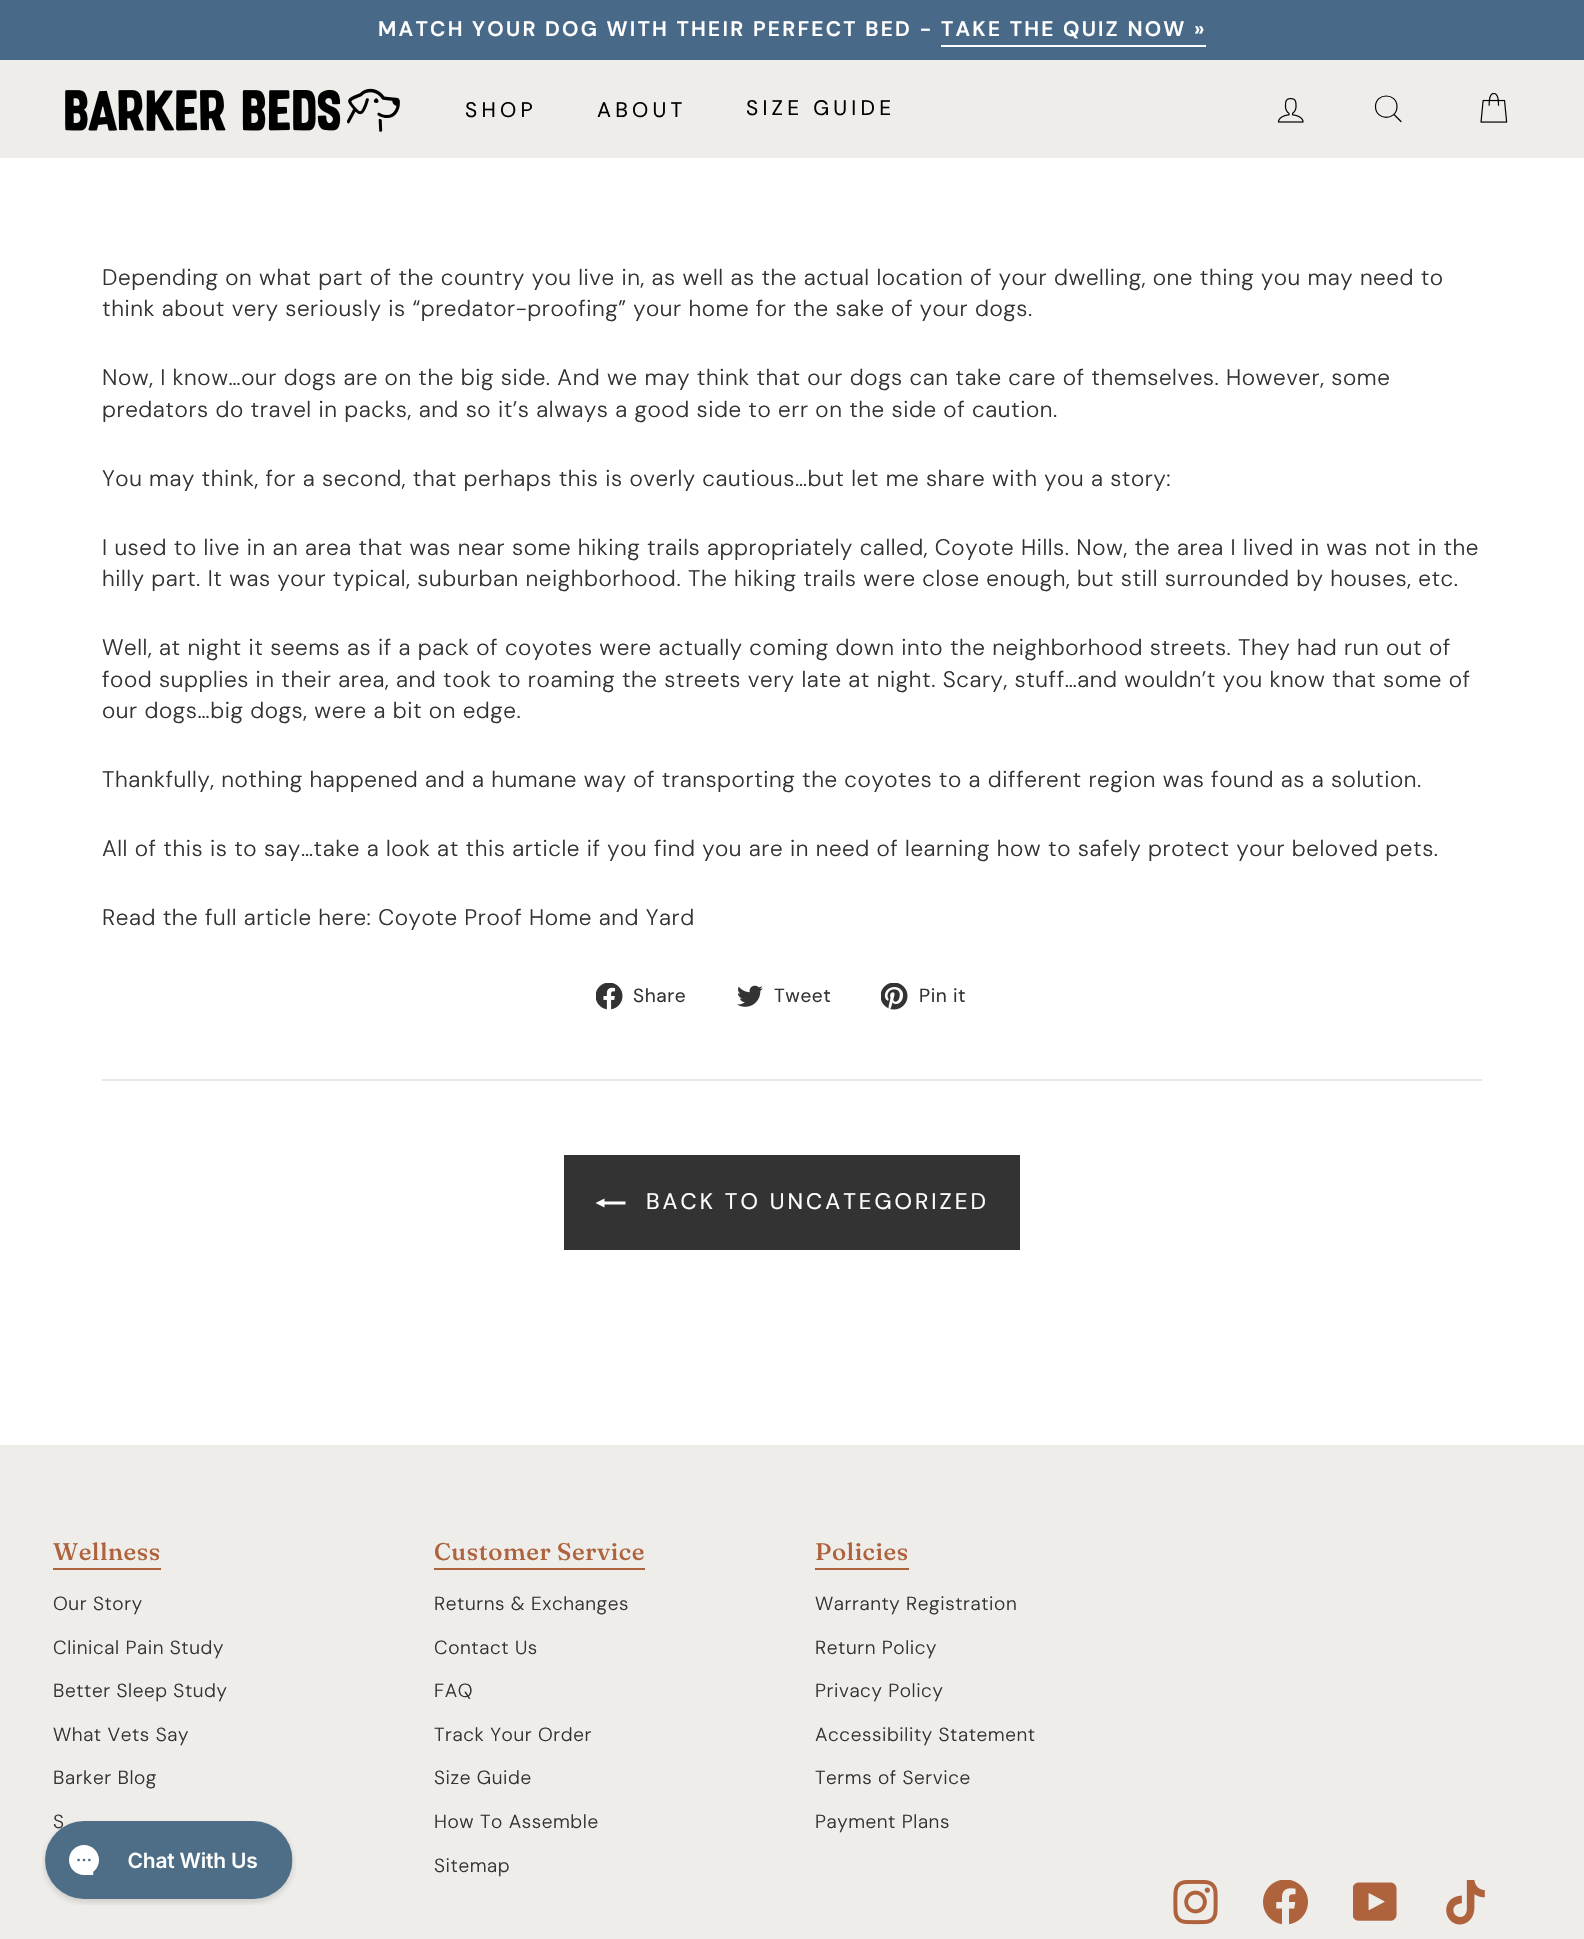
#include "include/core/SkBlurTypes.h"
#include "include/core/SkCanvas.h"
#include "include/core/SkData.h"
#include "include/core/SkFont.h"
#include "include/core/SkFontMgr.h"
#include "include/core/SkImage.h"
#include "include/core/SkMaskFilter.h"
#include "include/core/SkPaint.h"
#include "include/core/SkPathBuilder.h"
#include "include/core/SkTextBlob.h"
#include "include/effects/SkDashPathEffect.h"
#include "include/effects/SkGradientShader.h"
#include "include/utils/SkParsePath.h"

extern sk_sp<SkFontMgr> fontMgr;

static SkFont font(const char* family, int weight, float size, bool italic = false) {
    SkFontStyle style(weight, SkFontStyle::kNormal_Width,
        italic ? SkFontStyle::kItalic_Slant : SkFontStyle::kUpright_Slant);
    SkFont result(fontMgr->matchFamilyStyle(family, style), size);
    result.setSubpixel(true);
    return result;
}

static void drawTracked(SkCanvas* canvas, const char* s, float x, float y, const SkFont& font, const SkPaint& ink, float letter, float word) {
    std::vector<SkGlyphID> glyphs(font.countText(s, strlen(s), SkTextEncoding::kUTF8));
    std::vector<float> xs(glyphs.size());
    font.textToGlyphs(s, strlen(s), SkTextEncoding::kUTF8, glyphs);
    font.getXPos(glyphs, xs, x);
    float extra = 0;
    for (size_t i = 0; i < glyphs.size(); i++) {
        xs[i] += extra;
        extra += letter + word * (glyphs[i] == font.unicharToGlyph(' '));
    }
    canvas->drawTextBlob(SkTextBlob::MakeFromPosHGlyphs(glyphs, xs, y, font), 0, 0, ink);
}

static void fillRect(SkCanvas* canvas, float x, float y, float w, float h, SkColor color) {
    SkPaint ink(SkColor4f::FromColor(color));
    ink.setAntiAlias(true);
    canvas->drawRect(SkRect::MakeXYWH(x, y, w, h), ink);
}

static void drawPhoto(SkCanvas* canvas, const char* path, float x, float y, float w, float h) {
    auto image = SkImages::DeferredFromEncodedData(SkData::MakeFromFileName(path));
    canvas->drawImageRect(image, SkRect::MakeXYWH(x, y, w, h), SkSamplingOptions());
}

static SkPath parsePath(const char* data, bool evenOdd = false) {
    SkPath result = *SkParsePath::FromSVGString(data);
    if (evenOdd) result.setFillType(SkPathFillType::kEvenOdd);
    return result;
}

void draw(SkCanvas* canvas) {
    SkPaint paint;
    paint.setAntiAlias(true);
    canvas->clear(0xFFFFFFFF);
    fillRect(canvas, 0, 60, 1584, 98, 0xFFEFEDEA);
    fillRect(canvas, 0, 0, 1584, 60, 0xFF486988);
    SkFont font1 = font("DM Sans", 600, 21);
    paint.setColor(0xFFFFFFFF);
    drawTracked(canvas, "MATCH YOUR DOG WITH THEIR PERFECT BED - TAKE THE QUIZ NOW »", 378, 36, font1, paint, 2.25f, 0);
    fillRect(canvas, 941, 45, 265, 2, 0xFFFFFFFF);
    drawPhoto(canvas, "assets/img1.png", 65, 88, 335, 44);
    SkFont font2 = font("DM Sans", 400, 21);
    paint.setColor(0xFF000000);
    drawTracked(canvas, "SHOP", 465, 117, font2, paint, 4.25f, 0);
    drawTracked(canvas, "ABOUT", 597, 117, font2, paint, 4.25f, 0);
    drawTracked(canvas, "SIZE GUIDE", 746, 115, font2, paint, 4.25f, 0);
    drawPhoto(canvas, "assets/img2.png", 1277, 98, 27, 25);
    paint.setStroke(true);
    paint.setStrokeWidth(1.2f);
    paint.setStrokeCap(SkPaint::kRound_Cap);
    paint.setStrokeJoin(SkPaint::kRound_Join);
    canvas->drawPath(parsePath("M1397 106.5C1397 121 1375.5 121 1375.5 106.5C1375.5 92.5 1397 92.5 1397 106.5ZM1401 121.5L1394 114.5"), paint);
    drawPhoto(canvas, "assets/img3.png", 1480, 92, 28, 31);
    SkFont font3 = font("DM Sans", 300, 22.5f);
    paint.setStroke(false);
    paint.setColor(0xFF333333);
    drawTracked(canvas, "Depending on what part of the country you live in, as well as the actual location of your dwelling, one thing you may need to", 102, 285, font3, paint, 0.56f, 0);
    drawTracked(canvas, "think about very seriously is “predator-proofing” your home for the sake of your dogs.", 102, 316, font3, paint, 0.56f, 0);
    drawTracked(canvas, "Now, I know…our dogs are on the big side. And we may think that our dogs can take care of themselves. However, some", 102, 385, font3, paint, 0.56f, 0);
    drawTracked(canvas, "predators do travel in packs, and so it’s always a good side to err on the side of caution.", 102, 417, font3, paint, 0.56f, 0);
    drawTracked(canvas, "You may think, for a second, that perhaps this is overly cautious…but let me share with you a story:", 102, 486, font3, paint, 0.56f, 0);
    drawTracked(canvas, "I used to live in an area that was near some hiking trails appropriately called, Coyote Hills. Now, the area I lived in was not in the", 102, 555, font3, paint, 0.56f, 0);
    drawTracked(canvas, "hilly part. It was your typical, suburban neighborhood. The hiking trails were close enough, but still surrounded by houses, etc.", 102, 586, font3, paint, 0.56f, 0);
    drawTracked(canvas, "Well, at night it seems as if a pack of coyotes were actually coming down into the neighborhood streets. They had run out of", 102, 655, font3, paint, 0.56f, 0);
    drawTracked(canvas, "food supplies in their area, and took to roaming the streets very late at night. Scary, stuff…and wouldn’t you know that some of", 102, 687, font3, paint, 0.56f, 0);
    drawTracked(canvas, "our dogs…big dogs, were a bit on edge.", 102, 718, font3, paint, 0.56f, 0);
    drawTracked(canvas, "Thankfully, nothing happened and a humane way of transporting the coyotes to a different region was found as a solution.", 102, 787, font3, paint, 0.56f, 0);
    drawTracked(canvas, "All of this is to say…take a look at this article if you find you are in need of learning how to safely protect your beloved pets.", 102, 856, font3, paint, 0.56f, 0);
    drawTracked(canvas, "Read the full article here: Coyote Proof Home and Yard", 102, 925, font3, paint, 0.56f, 0);
    drawPhoto(canvas, "assets/img4.png", 596, 983, 27, 27);
    SkFont font4 = font("DM Sans", 400, 19.1f);
    drawTracked(canvas, "Share", 633, 1002, font4, paint, 0.56f, 0);
    drawPhoto(canvas, "assets/img5.png", 737, 985, 26, 22);
    drawTracked(canvas, "Tweet", 774, 1002, font4, paint, 0.56f, 0);
    drawPhoto(canvas, "assets/img6.png", 881, 983, 27, 27);
    drawTracked(canvas, "Pin it", 919, 1002, font4, paint, 0.56f, 0);
    fillRect(canvas, 102, 1079, 1380, 2, 0xFFE8E8E1);
    fillRect(canvas, 564, 1155, 456, 95, 0xFF333333);
    paint.setColor(0xFFFFFFFF);
    canvas->drawPath(parsePath("M625.5 1201.5V1204.5H604.5V1207.5L595.5 1203L604.5 1198.5V1201.5Z"), paint);
    SkFont font5 = font("DM Sans", 400, 22.5f);
    drawTracked(canvas, "BACK TO UNCATEGORIZED", 646, 1209, font5, paint, 3, 0);
    fillRect(canvas, 0, 1445, 1584, 494, 0xFFEFEDEA);
    fillRect(canvas, 53, 1568, 108, 2, 0xFFAE633D);
    SkFont font6 = font("Fraunces", 500, 24);
    paint.setColor(0xFFAE633D);
    drawTracked(canvas, "Wellness", 53, 1560, font6, paint, 0.56f, 0);
    SkFont font7 = font("DM Sans", 300, 19.1f);
    paint.setColor(0xFF333333);
    drawTracked(canvas, "Our Story", 53, 1610, font7, paint, 0.56f, 0);
    drawTracked(canvas, "Clinical Pain Study", 53, 1654, font7, paint, 0.56f, 0);
    drawTracked(canvas, "Better Sleep Study", 53, 1697, font7, paint, 0.56f, 0);
    drawTracked(canvas, "What Vets Say", 53, 1741, font7, paint, 0.56f, 0);
    drawTracked(canvas, "Barker Blog", 53, 1784, font7, paint, 0.56f, 0);
    drawTracked(canvas, "S", 53, 1828, font7, paint, 0.56f, 0);
    fillRect(canvas, 434, 1568, 211, 2, 0xFFAE633D);
    paint.setColor(0xFFAE633D);
    drawTracked(canvas, "Customer Service", 434, 1560, font6, paint, 0.56f, 0);
    paint.setColor(0xFF333333);
    drawTracked(canvas, "Returns & Exchanges", 434, 1610, font7, paint, 0.56f, 0);
    drawTracked(canvas, "Contact Us", 434, 1654, font7, paint, 0.56f, 0);
    drawTracked(canvas, "FAQ", 434, 1697, font7, paint, 0.56f, 0);
    drawTracked(canvas, "Track Your Order", 434, 1741, font7, paint, 0.56f, 0);
    drawTracked(canvas, "Size Guide", 434, 1784, font7, paint, 0.56f, 0);
    drawTracked(canvas, "How To Assemble", 434, 1828, font7, paint, 0.56f, 0);
    drawTracked(canvas, "Sitemap", 434, 1872, font7, paint, 0.56f, 0);
    fillRect(canvas, 815, 1568, 94, 2, 0xFFAE633D);
    paint.setColor(0xFFAE633D);
    drawTracked(canvas, "Policies", 815, 1560, font6, paint, 0.56f, 0);
    paint.setColor(0xFF333333);
    drawTracked(canvas, "Warranty Registration", 815, 1610, font7, paint, 0.56f, 0);
    drawTracked(canvas, "Return Policy", 815, 1654, font7, paint, 0.56f, 0);
    drawTracked(canvas, "Privacy Policy", 815, 1697, font7, paint, 0.56f, 0);
    drawTracked(canvas, "Accessibility Statement", 815, 1741, font7, paint, 0.56f, 0);
    drawTracked(canvas, "Terms of Service", 815, 1784, font7, paint, 0.56f, 0);
    drawTracked(canvas, "Payment Plans", 815, 1828, font7, paint, 0.56f, 0);
    drawPhoto(canvas, "assets/img7.png", 1173, 1880, 45, 45);
    drawPhoto(canvas, "assets/img8.png", 1263, 1880, 45, 45);
    drawPhoto(canvas, "assets/img9.png", 1353, 1882, 44, 39);
    drawPhoto(canvas, "assets/img10.png", 1446, 1880, 39, 45);
    drawPhoto(canvas, "assets/img11.png", 42, 1821, 254, 84);
}
